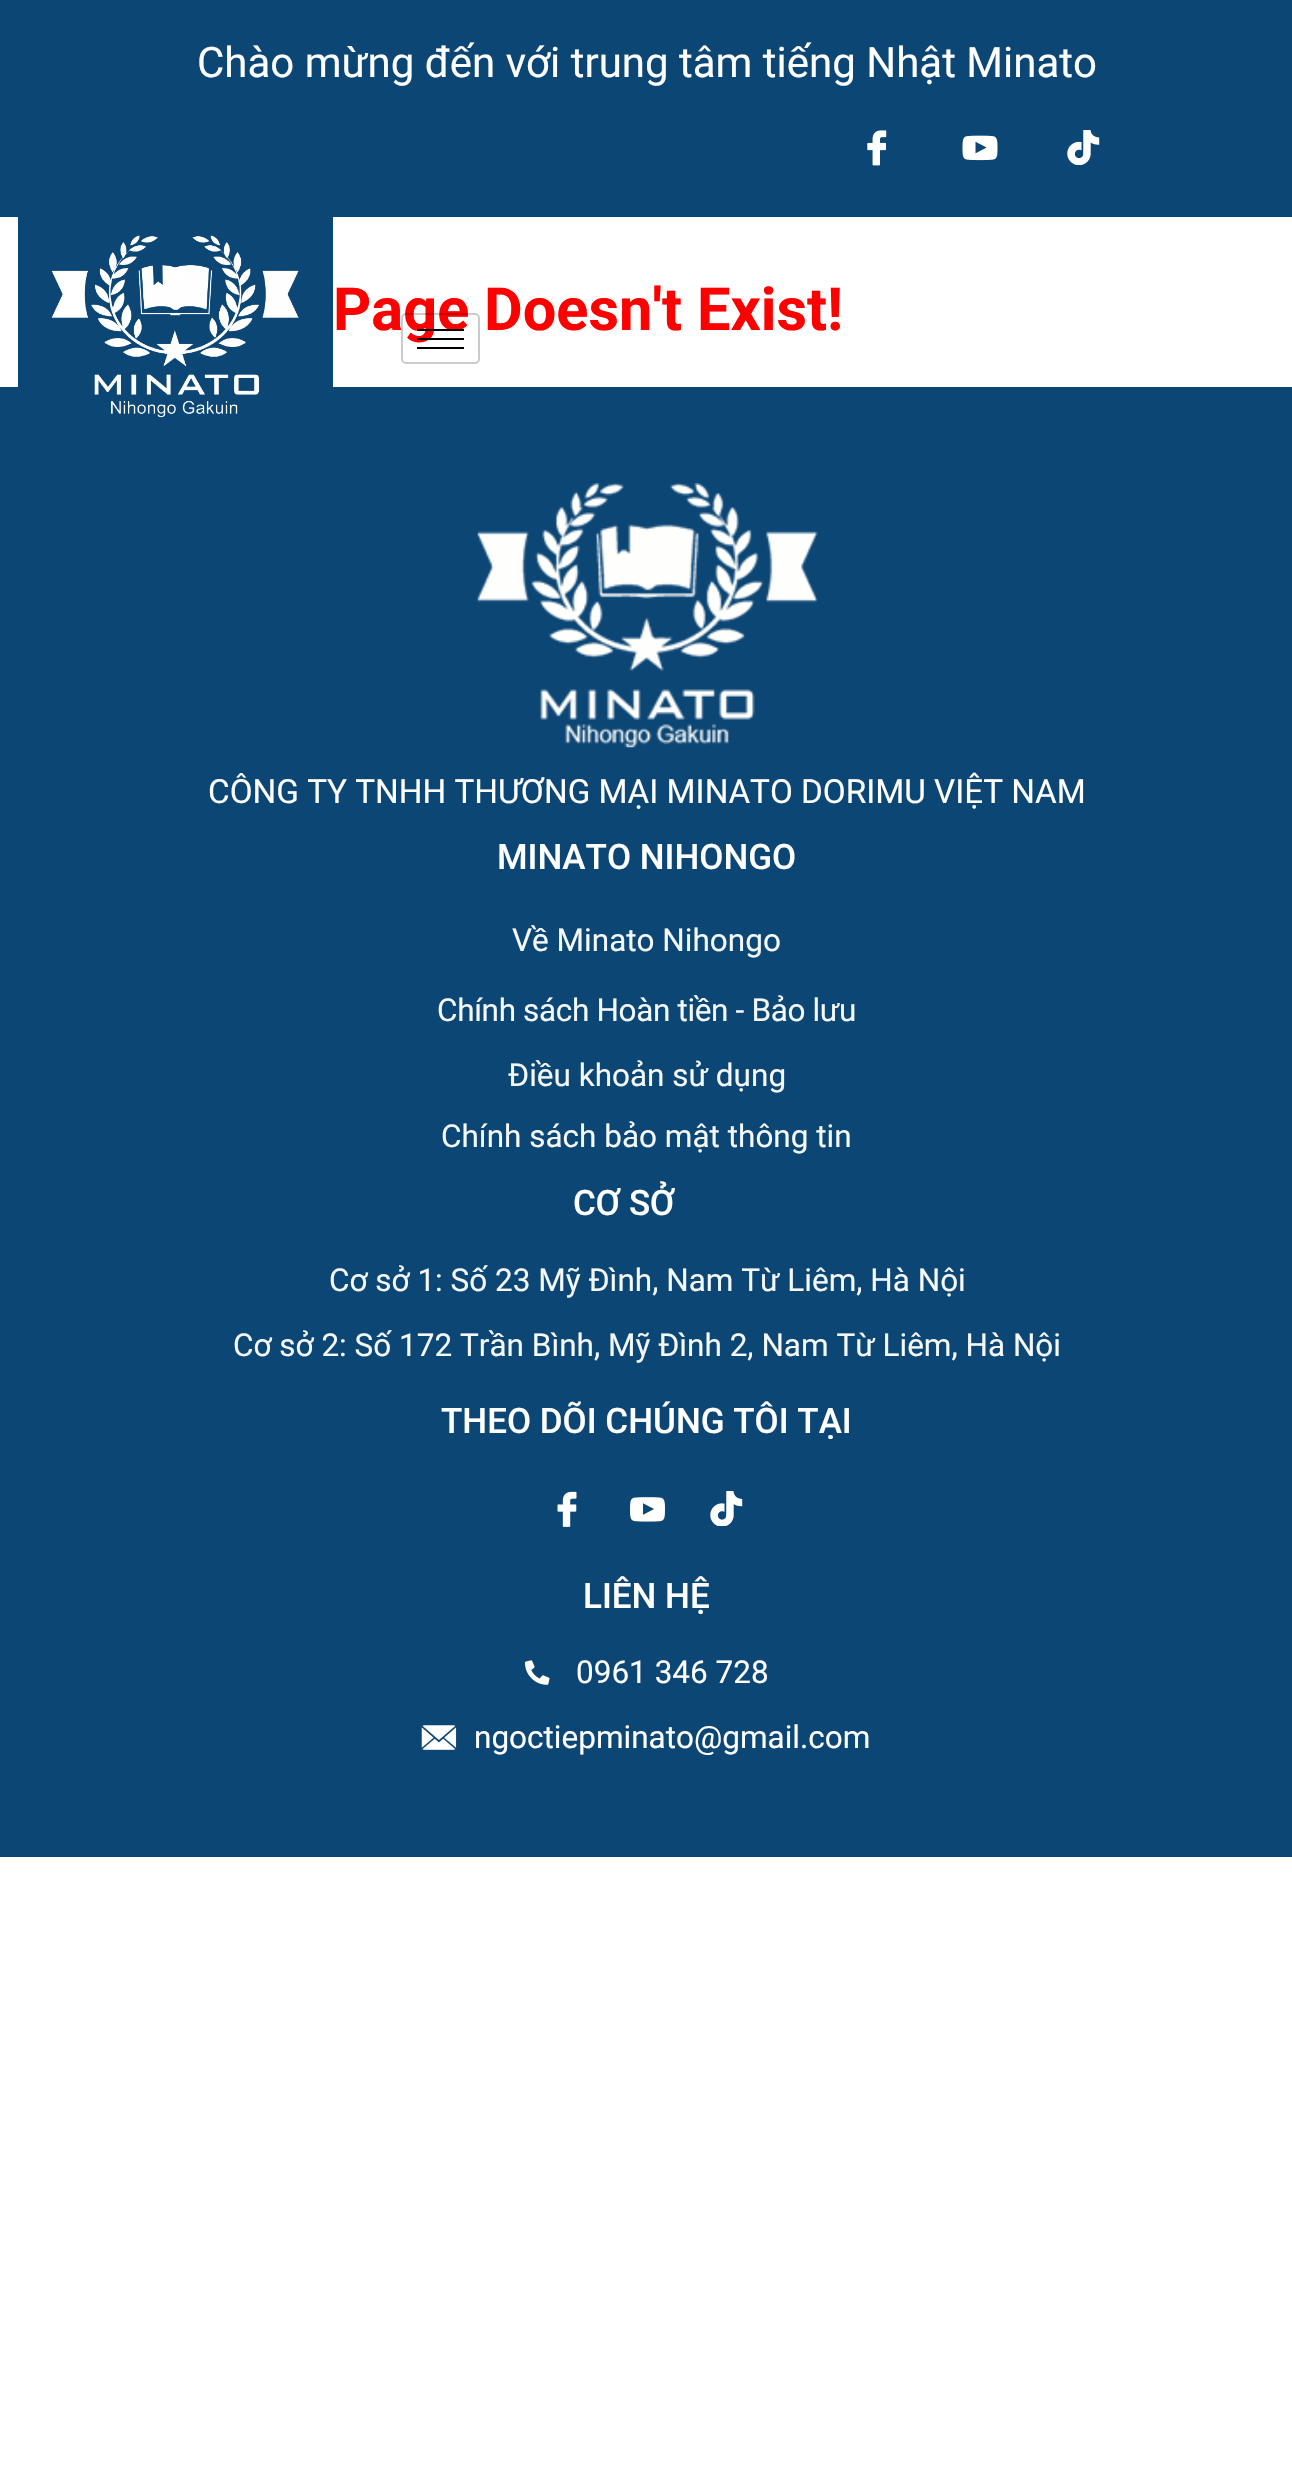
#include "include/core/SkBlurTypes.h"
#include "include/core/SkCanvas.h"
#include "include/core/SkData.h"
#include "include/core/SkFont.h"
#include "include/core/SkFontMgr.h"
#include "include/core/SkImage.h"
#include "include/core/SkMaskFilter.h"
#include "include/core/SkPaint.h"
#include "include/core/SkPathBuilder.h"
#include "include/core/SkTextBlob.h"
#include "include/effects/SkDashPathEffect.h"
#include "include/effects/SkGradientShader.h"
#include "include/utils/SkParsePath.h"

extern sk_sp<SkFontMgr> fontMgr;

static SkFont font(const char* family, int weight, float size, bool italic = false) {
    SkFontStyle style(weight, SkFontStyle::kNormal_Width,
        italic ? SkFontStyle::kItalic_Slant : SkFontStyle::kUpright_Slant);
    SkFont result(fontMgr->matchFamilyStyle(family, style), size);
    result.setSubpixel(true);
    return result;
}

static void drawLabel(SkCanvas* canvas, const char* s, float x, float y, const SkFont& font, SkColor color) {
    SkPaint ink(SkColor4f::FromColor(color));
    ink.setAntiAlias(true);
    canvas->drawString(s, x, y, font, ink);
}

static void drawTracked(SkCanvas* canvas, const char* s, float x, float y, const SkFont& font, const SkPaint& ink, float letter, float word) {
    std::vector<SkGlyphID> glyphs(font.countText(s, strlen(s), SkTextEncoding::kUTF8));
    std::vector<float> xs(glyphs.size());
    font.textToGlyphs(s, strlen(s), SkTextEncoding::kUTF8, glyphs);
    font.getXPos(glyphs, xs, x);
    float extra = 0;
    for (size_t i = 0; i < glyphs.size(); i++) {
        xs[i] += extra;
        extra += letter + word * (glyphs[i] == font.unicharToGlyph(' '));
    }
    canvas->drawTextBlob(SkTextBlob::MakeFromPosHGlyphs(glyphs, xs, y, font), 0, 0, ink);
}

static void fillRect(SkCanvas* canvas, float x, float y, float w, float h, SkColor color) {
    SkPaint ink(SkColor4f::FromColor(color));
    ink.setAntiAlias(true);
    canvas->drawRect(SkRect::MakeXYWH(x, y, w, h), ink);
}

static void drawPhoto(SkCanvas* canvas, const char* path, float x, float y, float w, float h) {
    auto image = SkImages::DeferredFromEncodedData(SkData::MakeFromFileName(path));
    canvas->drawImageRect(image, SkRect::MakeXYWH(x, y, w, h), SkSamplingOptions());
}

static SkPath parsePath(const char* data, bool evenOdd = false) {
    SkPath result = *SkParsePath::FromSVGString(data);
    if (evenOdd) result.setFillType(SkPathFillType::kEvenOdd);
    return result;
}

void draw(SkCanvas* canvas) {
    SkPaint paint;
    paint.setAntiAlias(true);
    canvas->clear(0xFFFFFFFF);
    fillRect(canvas, 0, 0, 1292, 217, 0xFF0C4675);
    SkFont font1 = font("Roboto", 400, 42);
    drawLabel(canvas, "Chào mừng đến với trung tâm tiếng Nhật Minato", 197, 77, font1, 0xFFFFFFFF);
    drawPhoto(canvas, "assets/img1.png", 867, 130, 20, 36);
    drawPhoto(canvas, "assets/img2.png", 962, 135, 36, 26);
    drawPhoto(canvas, "assets/img3.png", 1067, 130, 33, 35);
    fillRect(canvas, 0, 387, 1292, 1470, 0xFF0C4675);
    paint.setColor(0xFF0C4675);
    canvas->drawPath(parsePath("M18 200H333V425C333 440.5 320.5 453 305 453H46C30.5 453 18 440.5 18 425Z"), paint);
    drawPhoto(canvas, "assets/img4.png", 51, 235, 248, 183);
    SkFont font2 = font("Roboto", 700, 59.5f);
    drawLabel(canvas, "Page Doesn't Exist!", 333, 330, font2, 0xFFFF0000);
    paint.setStroke(true);
    paint.setStrokeWidth(2);
    paint.setColor(0x33000000);
    canvas->drawRoundRect(SkRect::MakeXYWH(402, 314, 77, 49), 4, 4, paint);
    fillRect(canvas, 417, 329, 47, 2, 0xFF000000);
    fillRect(canvas, 417, 338, 47, 2, 0xFF000000);
    fillRect(canvas, 417, 347, 47, 2, 0xFF000000);
    drawPhoto(canvas, "assets/img5.png", 477, 483, 341, 265);
    SkFont font3 = font("Roboto", 400, 33.25f);
    drawLabel(canvas, "CÔNG TY TNHH THƯƠNG MẠI MINATO DORIMU VIỆT NAM", 208, 803, font3, 0xFFFFFFFF);
    SkFont font4 = font("Roboto", 500, 35);
    drawLabel(canvas, "MINATO NIHONGO", 497, 869, font4, 0xFFFFFFFF);
    SkFont font5 = font("Roboto", 400, 31.5f);
    drawLabel(canvas, "Về Minato Nihongo", 512, 951, font5, 0xFFF5F8F9);
    paint.setStroke(false);
    paint.setColor(0xFFF5F8F9);
    drawTracked(canvas, "Chính sách Hoàn tiền - Bảo lưu", 437, 1021, font5, paint, -0.35f, 0);
    drawLabel(canvas, "Điều khoản sử dụng", 508, 1086, font5, 0xFFF5F8F9);
    drawLabel(canvas, "Chính sách bảo mật thông tin", 441, 1147, font5, 0xFFF5F8F9);
    drawLabel(canvas, "CƠ SỞ", 573, 1215, font4, 0xFFFFFFFF);
    drawLabel(canvas, "Cơ sở 1: Số 23 Mỹ Đình, Nam Từ Liêm, Hà Nội", 329, 1291, font5, 0xFFF5F8F9);
    drawLabel(canvas, "Cơ sở 2: Số 172 Trần Bình, Mỹ Đình 2, Nam Từ Liêm, Hà Nội", 233, 1356, font5, 0xFFF5F8F9);
    drawLabel(canvas, "THEO DÕI CHÚNG TÔI TẠI", 441, 1433, font4, 0xFFFFFFFF);
    drawPhoto(canvas, "assets/img6.png", 557, 1491, 20, 36);
    drawPhoto(canvas, "assets/img7.png", 630, 1497, 35, 25);
    drawPhoto(canvas, "assets/img8.png", 710, 1491, 33, 35);
    drawLabel(canvas, "LIÊN HỆ", 583, 1608, font4, 0xFFFFFFFF);
    drawPhoto(canvas, "assets/img9.png", 525, 1660, 25, 25);
    drawLabel(canvas, "0961 346 728", 576, 1683, font5, 0xFFFFFFFF);
    drawPhoto(canvas, "assets/img10.png", 421, 1725, 36, 25);
    drawLabel(canvas, "ngoctiepminato@gmail.com", 474, 1748, font5, 0xFFFFFFFF);
}
